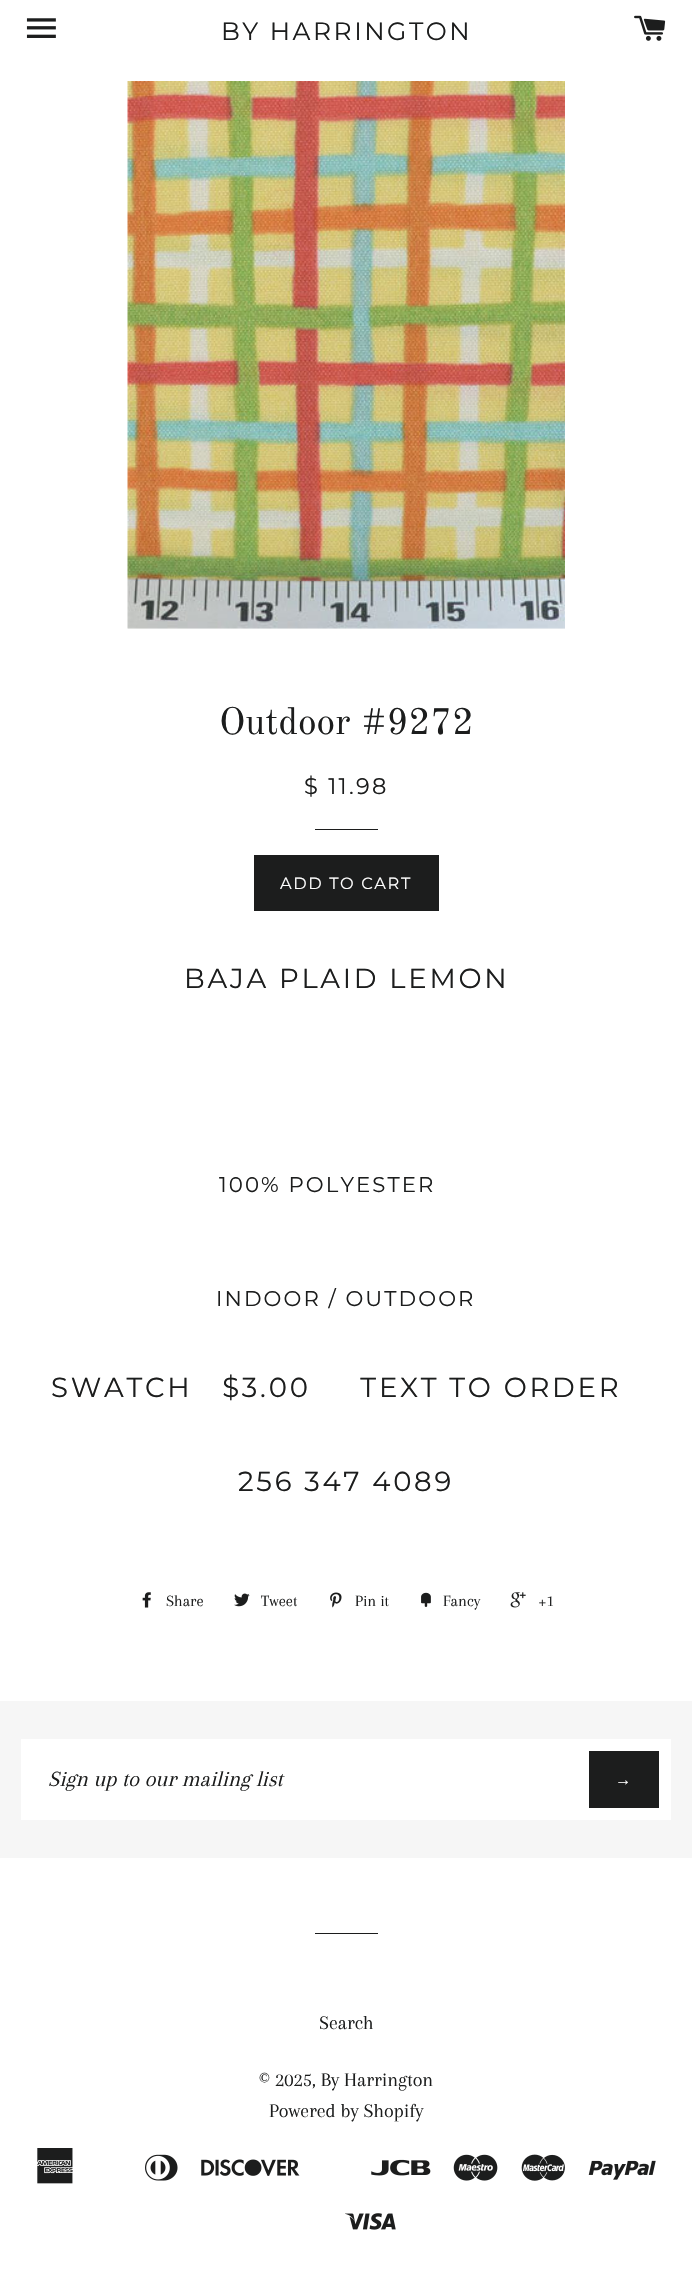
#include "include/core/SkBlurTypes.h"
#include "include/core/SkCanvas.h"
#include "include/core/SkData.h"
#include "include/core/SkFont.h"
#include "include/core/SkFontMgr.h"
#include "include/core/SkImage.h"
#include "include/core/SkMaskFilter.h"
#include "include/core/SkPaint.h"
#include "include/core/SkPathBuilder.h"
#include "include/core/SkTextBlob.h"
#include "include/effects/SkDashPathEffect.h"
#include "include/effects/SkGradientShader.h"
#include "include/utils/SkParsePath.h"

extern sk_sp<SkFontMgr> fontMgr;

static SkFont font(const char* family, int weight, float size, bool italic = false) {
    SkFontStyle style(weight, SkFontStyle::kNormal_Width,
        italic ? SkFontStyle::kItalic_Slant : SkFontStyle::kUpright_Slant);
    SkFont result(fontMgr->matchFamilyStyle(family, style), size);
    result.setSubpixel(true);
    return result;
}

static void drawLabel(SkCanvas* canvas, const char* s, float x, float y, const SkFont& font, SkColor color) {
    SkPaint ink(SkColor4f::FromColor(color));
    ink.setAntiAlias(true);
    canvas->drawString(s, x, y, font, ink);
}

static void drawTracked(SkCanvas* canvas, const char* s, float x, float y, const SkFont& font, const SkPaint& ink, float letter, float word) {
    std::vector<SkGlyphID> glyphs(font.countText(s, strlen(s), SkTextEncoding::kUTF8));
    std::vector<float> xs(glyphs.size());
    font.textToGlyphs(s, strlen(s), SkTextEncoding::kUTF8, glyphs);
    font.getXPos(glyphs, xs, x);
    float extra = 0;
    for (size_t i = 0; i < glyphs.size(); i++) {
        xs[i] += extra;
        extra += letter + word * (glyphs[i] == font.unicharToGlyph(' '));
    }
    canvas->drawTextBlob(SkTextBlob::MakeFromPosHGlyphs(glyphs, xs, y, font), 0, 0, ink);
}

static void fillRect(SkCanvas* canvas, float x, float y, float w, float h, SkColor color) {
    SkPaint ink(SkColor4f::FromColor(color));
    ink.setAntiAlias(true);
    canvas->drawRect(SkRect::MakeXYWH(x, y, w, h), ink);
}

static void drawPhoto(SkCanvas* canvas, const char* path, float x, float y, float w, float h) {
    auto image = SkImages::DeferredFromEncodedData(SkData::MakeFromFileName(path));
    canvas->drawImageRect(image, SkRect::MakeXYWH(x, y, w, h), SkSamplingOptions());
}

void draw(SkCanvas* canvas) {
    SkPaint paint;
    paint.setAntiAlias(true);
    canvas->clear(0xFFFFFFFF);
    drawPhoto(canvas, "assets/img1.png", 26, 18, 30, 20);
    SkFont font1 = font("Montserrat", 100, 25);
    paint.setColor(0xFF1C1D1D);
    drawTracked(canvas, "BY HARRINGTON", 221, 40, font1, paint, 2.5f, 0);
    drawPhoto(canvas, "assets/img2.png", 634, 15, 32, 26);
    fillRect(canvas, 128, 628, 437, 1, 0xFFF7F7F7);
    drawPhoto(canvas, "assets/img3.png", 127, 81, 438, 548);
    SkFont font2 = font("Old Standard TT", 400, 37.5f);
    drawLabel(canvas, "Outdoor #9272", 219, 734, font2, 0xFF1C1D1D);
    SkFont font3 = font("Montserrat", 100, 22.5f);
    drawTracked(canvas, "$ 11.98", 304, 794, font3, paint, 2.25f, 0);
    fillRect(canvas, 315, 829, 63, 1, 0xFF1C1D1D);
    fillRect(canvas, 254, 855, 185, 56, 0xFF1C1D1D);
    SkFont font4 = font("Montserrat", 100, 16.25f);
    paint.setColor(0xFFFFFFFF);
    drawTracked(canvas, "ADD TO CART", 280, 889, font4, paint, 1.6f, 0);
    SkFont font5 = font("Montserrat", 100, 27.5f);
    paint.setColor(0xFF1C1D1D);
    drawTracked(canvas, "BAJA PLAID LEMON", 184, 988, font5, paint, 2.75f, 0);
    SkFont font6 = font("Montserrat", 100, 21.25f);
    drawTracked(canvas, "100% POLYESTER", 219, 1192, font6, paint, 2.1f, 0);
    drawTracked(canvas, "INDOOR / OUTDOOR", 216, 1306, font6, paint, 2.1f, 0);
    drawTracked(canvas, "SWATCH   $3.00     TEXT TO ORDER", 51, 1397, font5, paint, 2.75f, 0);
    drawTracked(canvas, "256 347 4089", 238, 1491, font5, paint, 2.75f, 0);
    drawPhoto(canvas, "assets/img4.png", 142, 1592, 9, 16);
    SkFont font7 = font("Arapey", 400, 16.25f);
    drawLabel(canvas, "Share", 166, 1606, font7, 0xFF1C1D1D);
    drawPhoto(canvas, "assets/img5.png", 234, 1593, 16, 14);
    drawLabel(canvas, "Tweet", 261, 1606, font7, 0xFF1C1D1D);
    drawPhoto(canvas, "assets/img6.png", 330, 1592, 12, 16);
    drawLabel(canvas, "Pin it", 355, 1606, font7, 0xFF1C1D1D);
    drawPhoto(canvas, "assets/img7.png", 421, 1592, 10, 15);
    drawLabel(canvas, "Fancy", 443, 1606, font7, 0xFF1C1D1D);
    drawPhoto(canvas, "assets/img8.png", 510, 1592, 16, 16);
    drawLabel(canvas, "+1", 538, 1606, font7, 0xFF1C1D1D);
    fillRect(canvas, 0, 1701, 692, 157, 0xFFF6F6F6);
    fillRect(canvas, 21, 1739, 650, 81, 0xFFFFFFFF);
    canvas->save();
    canvas->clipRect(SkRect::MakeXYWH(48, 1766, 527, 25));
    SkFont font8 = font("Arapey", 400, 22.5f, true);
    drawLabel(canvas, "Sign up to our mailing list", 48, 1786, font8, 0xFF1C1D1D);
    canvas->restore();
    fillRect(canvas, 589, 1751, 70, 57, 0xFF1C1D1D);
    SkFont font9 = font("Liberation Sans", 400, 16.25f);
    paint.setColor(0xFFFFFFFF);
    drawTracked(canvas, "→", 615, 1785, font9, paint, 1.6f, 0);
    fillRect(canvas, 315, 1933, 63, 1, 0xFF1C1D1D);
    SkFont font10 = font("Arapey", 400, 20);
    drawLabel(canvas, "Search", 319, 2029, font10, 0xFF1C1D1D);
    drawLabel(canvas, "© 2025, By Harrington", 259, 2086, font10, 0xFF1C1D1D);
    drawLabel(canvas, "Powered by Shopify", 269, 2117, font10, 0xFF1C1D1D);
    drawPhoto(canvas, "assets/img9.png", 37, 2148, 36, 36);
    drawPhoto(canvas, "assets/img10.png", 145, 2154, 33, 27);
    drawPhoto(canvas, "assets/img11.png", 201, 2159, 99, 17);
    drawPhoto(canvas, "assets/img12.png", 371, 2159, 60, 17);
    drawPhoto(canvas, "assets/img13.png", 453, 2154, 45, 27);
    drawPhoto(canvas, "assets/img14.png", 521, 2154, 44, 27);
    drawPhoto(canvas, "assets/img15.png", 588, 2160, 68, 20);
    drawPhoto(canvas, "assets/img16.png", 345, 2213, 51, 17);
}
